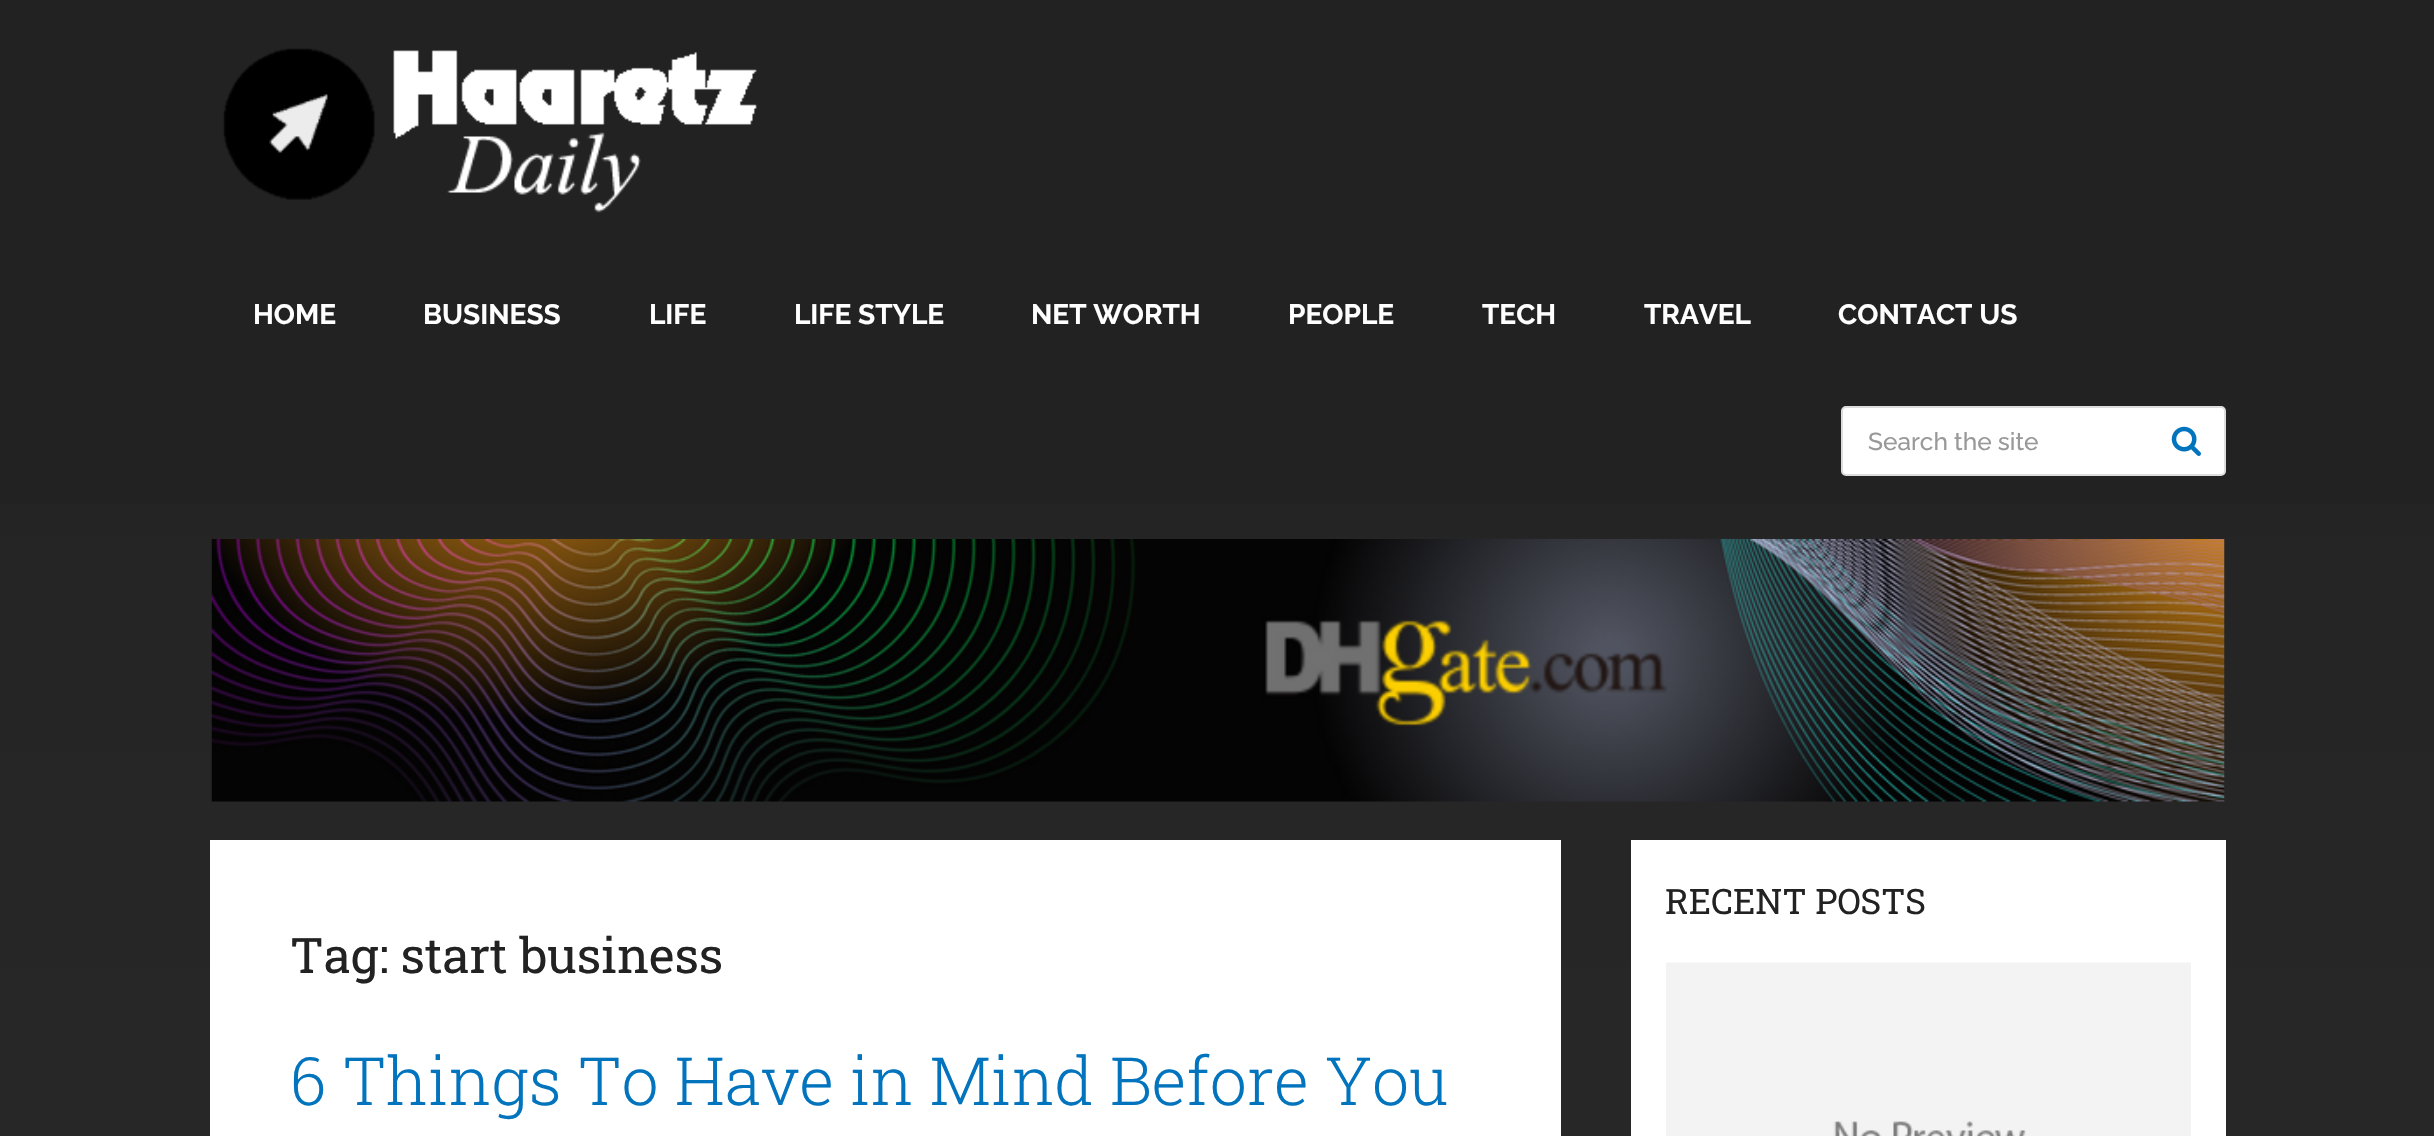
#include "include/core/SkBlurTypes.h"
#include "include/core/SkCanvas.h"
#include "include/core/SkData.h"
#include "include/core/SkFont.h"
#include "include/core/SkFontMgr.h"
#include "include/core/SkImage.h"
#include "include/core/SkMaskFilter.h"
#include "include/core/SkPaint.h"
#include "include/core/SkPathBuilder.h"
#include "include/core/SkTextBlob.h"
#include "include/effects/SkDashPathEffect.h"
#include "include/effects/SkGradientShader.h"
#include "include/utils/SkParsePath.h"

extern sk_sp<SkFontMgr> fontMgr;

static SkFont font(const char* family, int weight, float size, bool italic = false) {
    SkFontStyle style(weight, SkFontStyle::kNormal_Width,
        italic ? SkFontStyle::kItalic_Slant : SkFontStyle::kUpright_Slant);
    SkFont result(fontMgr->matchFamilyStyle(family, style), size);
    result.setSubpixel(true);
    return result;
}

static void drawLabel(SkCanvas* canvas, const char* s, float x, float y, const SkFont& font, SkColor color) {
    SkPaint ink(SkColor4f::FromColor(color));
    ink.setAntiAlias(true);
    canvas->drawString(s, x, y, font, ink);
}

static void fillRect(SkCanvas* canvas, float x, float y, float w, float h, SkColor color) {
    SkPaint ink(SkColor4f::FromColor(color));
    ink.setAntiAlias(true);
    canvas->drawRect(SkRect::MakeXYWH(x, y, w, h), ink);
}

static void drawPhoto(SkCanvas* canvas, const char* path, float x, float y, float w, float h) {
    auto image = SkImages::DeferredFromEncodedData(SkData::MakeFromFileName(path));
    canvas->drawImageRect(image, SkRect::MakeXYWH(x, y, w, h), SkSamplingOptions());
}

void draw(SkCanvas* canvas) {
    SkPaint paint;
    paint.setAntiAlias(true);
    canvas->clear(0xFFFFFFFF);
    {
        const SkColor colors[] = {0xFF222222, 0xFF515151};
        const float stops[] = {0, 1};
        const SkPoint ends[] = {{1217, 0}, {1217, 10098}};
        paint.setShader(SkGradientShader::MakeLinear(ends, colors, stops, 2, SkTileMode::kClamp));
        paint.setAlpha(255);
    }
    canvas->drawRect(SkRect::MakeXYWH(0, 504, 2434, 632), paint);
    fillRect(canvas, 0, 0, 2434, 504, 0xFF222222);
    drawPhoto(canvas, "assets/img1.png", 223, 48, 534, 165);
    SkFont font1 = font("Raleway", 700, 28);
    drawLabel(canvas, "HOME", 253, 324, font1, 0xFFFFFFFF);
    drawLabel(canvas, "BUSINESS", 423, 324, font1, 0xFFFFFFFF);
    drawLabel(canvas, "LIFE", 649, 324, font1, 0xFFFFFFFF);
    drawLabel(canvas, "LIFE STYLE", 794, 324, font1, 0xFFFFFFFF);
    drawLabel(canvas, "NET WORTH", 1031, 324, font1, 0xFFFFFFFF);
    drawLabel(canvas, "PEOPLE", 1288, 324, font1, 0xFFFFFFFF);
    drawLabel(canvas, "TECH", 1482, 324, font1, 0xFFFFFFFF);
    drawLabel(canvas, "TRAVEL", 1644, 324, font1, 0xFFFFFFFF);
    drawLabel(canvas, "CONTACT US", 1838, 324, font1, 0xFFFFFFFF);
    paint.setShader(nullptr);
    paint.setColor(0xFFFFFFFF);
    canvas->drawRoundRect(SkRect::MakeXYWH(1842, 407, 383, 68), 4, 4, paint);
    paint.setStroke(true);
    paint.setStrokeWidth(2);
    paint.setColor(0xFFDDDDDD);
    canvas->drawRoundRect(SkRect::MakeXYWH(1842, 407, 383, 68), 4, 4, paint);
    SkFont font2 = font("Raleway", 500, 24.5f);
    drawLabel(canvas, "Search the site", 1868, 450, font2, 0xFF999999);
    drawPhoto(canvas, "assets/img2.png", 2171, 426, 30, 30);
    drawPhoto(canvas, "assets/img3.png", 211, 539, 2014, 263);
    fillRect(canvas, 1631, 840, 595, 296, 0xFFFFFFFF);
    SkFont font3 = font("Roboto Slab", 400, 35);
    drawLabel(canvas, "RECENT POSTS", 1665, 914, font3, 0xFF222222);
    drawPhoto(canvas, "assets/img4.png", 1666, 962, 525, 174);
    fillRect(canvas, 210, 840, 1351, 296, 0xFFFFFFFF);
    SkFont font4 = font("Roboto Slab", 400, 49);
    drawLabel(canvas, "Tag: start business", 290, 973, font4, 0xFF222222);
    SkFont font5 = font("Roboto Slab", 300, 66.5f);
    drawLabel(canvas, "6 Things To Have in Mind Before You", 290, 1105, font5, 0xFF0274BE);
}
